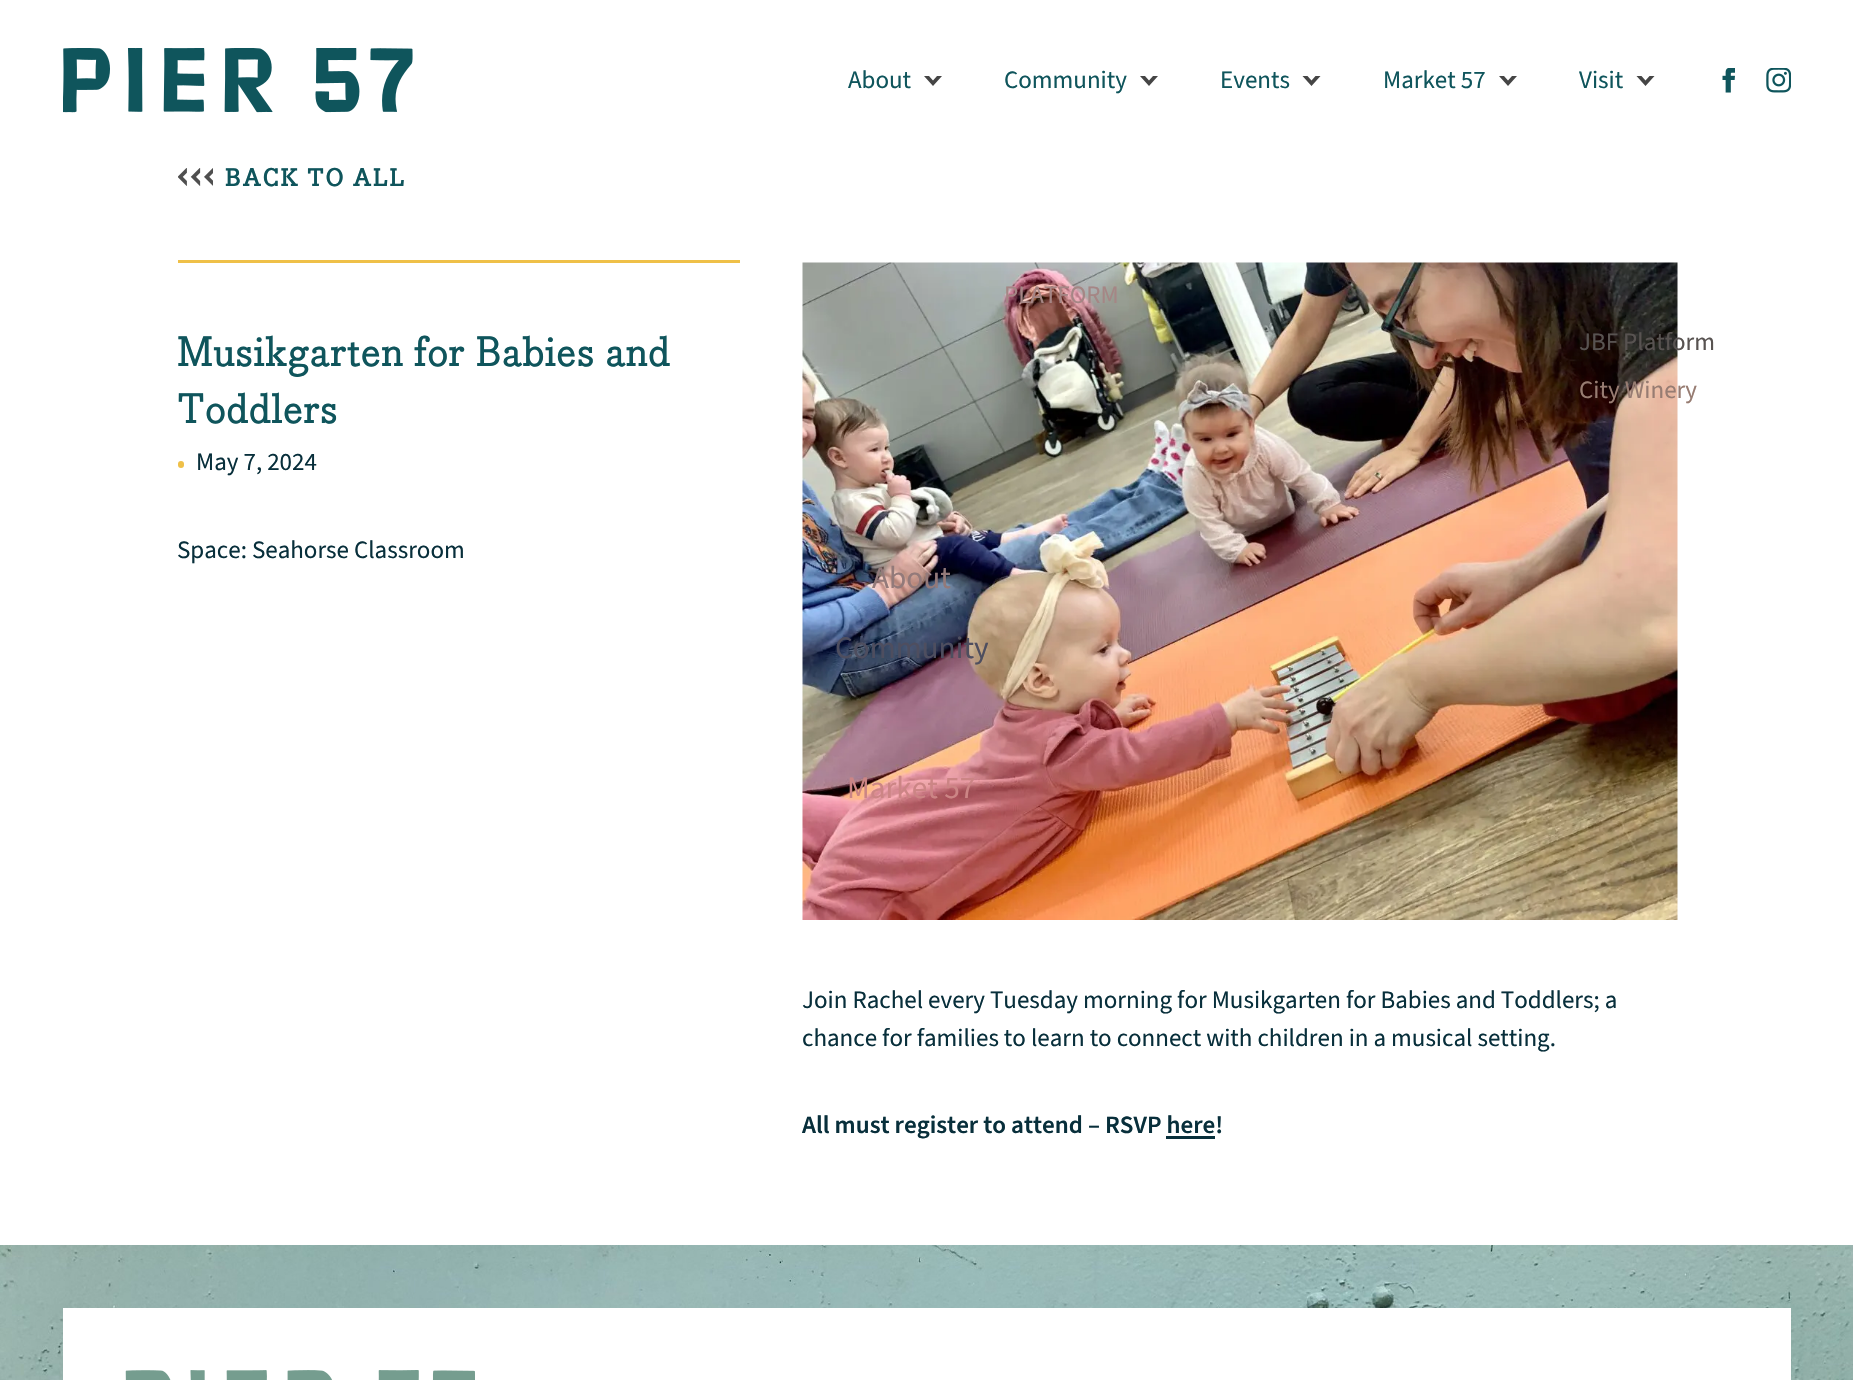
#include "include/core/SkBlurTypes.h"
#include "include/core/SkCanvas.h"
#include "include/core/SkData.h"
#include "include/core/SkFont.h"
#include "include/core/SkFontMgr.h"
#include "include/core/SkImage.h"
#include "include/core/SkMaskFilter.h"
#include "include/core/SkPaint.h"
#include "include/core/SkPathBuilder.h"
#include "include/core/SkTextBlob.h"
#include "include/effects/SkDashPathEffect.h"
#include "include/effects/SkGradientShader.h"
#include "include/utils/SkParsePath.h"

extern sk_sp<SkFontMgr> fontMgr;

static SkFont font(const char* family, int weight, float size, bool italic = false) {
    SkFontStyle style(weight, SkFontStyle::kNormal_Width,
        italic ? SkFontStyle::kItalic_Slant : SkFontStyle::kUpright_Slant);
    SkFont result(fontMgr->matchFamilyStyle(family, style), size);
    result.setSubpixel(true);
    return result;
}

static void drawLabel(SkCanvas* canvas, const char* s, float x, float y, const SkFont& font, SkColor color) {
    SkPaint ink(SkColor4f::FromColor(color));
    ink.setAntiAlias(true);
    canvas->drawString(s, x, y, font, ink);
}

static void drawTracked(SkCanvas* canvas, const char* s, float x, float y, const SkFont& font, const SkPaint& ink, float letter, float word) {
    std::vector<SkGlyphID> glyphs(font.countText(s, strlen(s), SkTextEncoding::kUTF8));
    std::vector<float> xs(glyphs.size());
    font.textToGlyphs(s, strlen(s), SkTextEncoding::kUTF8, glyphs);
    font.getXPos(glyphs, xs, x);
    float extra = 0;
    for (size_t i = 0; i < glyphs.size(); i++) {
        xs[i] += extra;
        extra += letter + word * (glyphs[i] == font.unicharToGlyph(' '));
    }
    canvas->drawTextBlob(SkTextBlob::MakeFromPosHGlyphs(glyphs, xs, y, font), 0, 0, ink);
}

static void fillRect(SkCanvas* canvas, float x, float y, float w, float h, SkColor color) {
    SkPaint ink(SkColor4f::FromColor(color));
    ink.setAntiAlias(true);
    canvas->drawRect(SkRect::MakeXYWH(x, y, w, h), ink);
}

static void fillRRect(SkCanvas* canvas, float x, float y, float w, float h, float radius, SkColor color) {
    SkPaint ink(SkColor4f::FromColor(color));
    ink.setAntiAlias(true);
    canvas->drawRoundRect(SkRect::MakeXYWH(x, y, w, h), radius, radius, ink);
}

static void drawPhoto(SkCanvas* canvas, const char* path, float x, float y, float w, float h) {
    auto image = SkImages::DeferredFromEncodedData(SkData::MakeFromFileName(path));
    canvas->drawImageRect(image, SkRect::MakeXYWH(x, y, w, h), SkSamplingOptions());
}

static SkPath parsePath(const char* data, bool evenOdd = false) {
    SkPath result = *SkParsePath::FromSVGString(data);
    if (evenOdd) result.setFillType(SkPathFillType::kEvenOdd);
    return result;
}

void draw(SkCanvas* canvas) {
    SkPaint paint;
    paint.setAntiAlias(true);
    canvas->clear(0xFFFFFFFF);
    drawPhoto(canvas, "assets/img1.png", 63, 48, 350, 65);
    SkFont font1 = font("Source Sans Pro", 400, 25);
    drawLabel(canvas, "About", 848, 88, font1, 0xFF0F555C);
    paint.setColor(0xFF454545);
    canvas->drawPath(parsePath("M937 76L933 80.5L929 76H924L933 86L942 76Z"), paint);
    drawLabel(canvas, "Community", 1004, 88, font1, 0xFF0F555C);
    canvas->drawPath(parsePath("M1153 76L1149 80.5L1145 76H1140L1149 86L1158 76Z"), paint);
    drawPhoto(canvas, "assets/img5.png", 802, 262, 876, 658);
    drawLabel(canvas, "PLATFORM", 1004, 303, font1, 0xFFA58685);
    drawLabel(canvas, "Events", 1220, 88, font1, 0xFF0F555C);
    canvas->drawPath(parsePath("M1315.5 76L1311.5 80.5L1307.5 76H1302.5L1311.5 86L1320.5 76Z"), paint);
    drawLabel(canvas, "Market 57", 1383, 88, font1, 0xFF0F555C);
    canvas->drawPath(parsePath("M1512 76L1508 80.5L1504 76H1499L1508 86L1517 76Z"), paint);
    drawLabel(canvas, "Visit", 1579, 88, font1, 0xFF0F555C);
    canvas->drawPath(parsePath("M1649.5 76L1645.5 80.5L1641.5 76H1636.5L1645.5 86L1654.5 76Z"), paint);
    drawLabel(canvas, "JBF Platform", 1579, 350, font1, 0xFF585351);
    drawLabel(canvas, "City Winery", 1579, 398, font1, 0xFF977C72);
    drawPhoto(canvas, "assets/img2.png", 1722, 68, 13, 25);
    drawPhoto(canvas, "assets/img3.png", 1766, 68, 25, 25);
    fillRect(canvas, 178, 260, 562, 3, 0xFFEFC048);
    drawPhoto(canvas, "assets/img4.png", 178, 168, 35, 18);
    SkFont font2 = font("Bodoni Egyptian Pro", 700, 25);
    paint.setColor(0xFF0F555C);
    drawTracked(canvas, "BACK TO ALL", 225, 186, font2, paint, 1.25f, 0);
    SkFont font3 = font("Bodoni Egyptian Pro", 500, 41.75f);
    drawLabel(canvas, "Musikgarten for Babies and", 177, 366, font3, 0xFF0F555C);
    drawLabel(canvas, "Toddlers", 177, 423, font3, 0xFF0F555C);
    fillRRect(canvas, 178, 461, 6, 7, 3, 0xFFEFC048);
    drawLabel(canvas, "May 7, 2024", 196, 470, font1, 0xFF082F3B);
    drawLabel(canvas, "Space: Seahorse Classroom", 177, 558, font1, 0xFF082F3B);
    drawLabel(canvas, "Join Rachel every Tuesday morning for Musikgarten for Babies and Toddlers; a", 802, 1008, font1, 0xFF082F3B);
    drawLabel(canvas, "chance for families to learn to connect with children in a musical setting.", 802, 1046, font1, 0xFF082F3B);
    SkFont font4 = font("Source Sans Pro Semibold", 600, 25);
    drawLabel(canvas, "All must register to attend – RSVP here!", 802, 1133, font4, 0xFF082F3B);
    fillRect(canvas, 1166, 1136, 49, 3, 0xFF082F3B);
    SkFont font5 = font("Source Sans Pro", 400, 31.25f);
    drawLabel(canvas, "About", 872, 588, font5, 0xFF937A7A);
    drawLabel(canvas, "Community", 835, 658, font5, 0xFF4E4E5F);
    drawLabel(canvas, "Market 57", 847, 798, font5, 0xFFCC8585);
    drawPhoto(canvas, "assets/img6.png", 0, 1245, 1853, 135);
    fillRect(canvas, 63, 1308, 1728, 72, 0xFFFFFFFF);
    drawPhoto(canvas, "assets/img7.png", 125, 1370, 350, 10);
}
